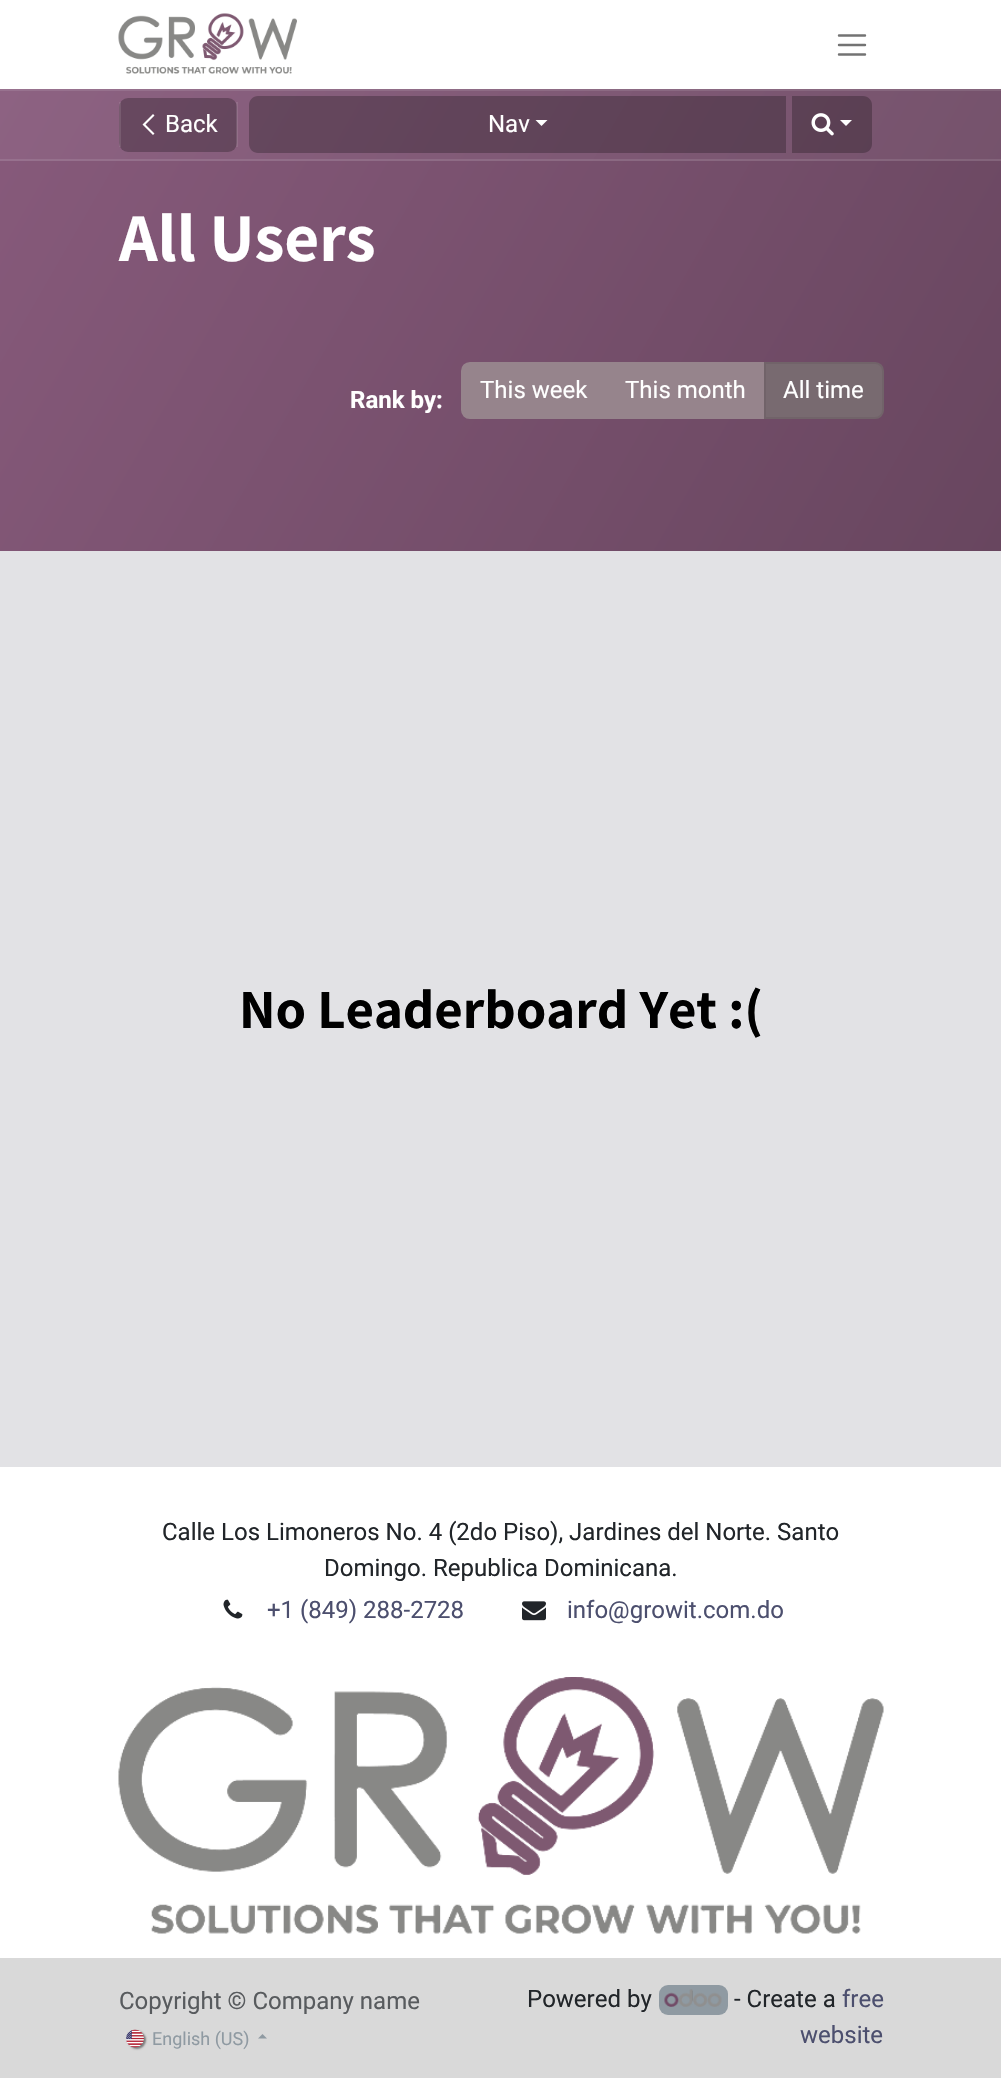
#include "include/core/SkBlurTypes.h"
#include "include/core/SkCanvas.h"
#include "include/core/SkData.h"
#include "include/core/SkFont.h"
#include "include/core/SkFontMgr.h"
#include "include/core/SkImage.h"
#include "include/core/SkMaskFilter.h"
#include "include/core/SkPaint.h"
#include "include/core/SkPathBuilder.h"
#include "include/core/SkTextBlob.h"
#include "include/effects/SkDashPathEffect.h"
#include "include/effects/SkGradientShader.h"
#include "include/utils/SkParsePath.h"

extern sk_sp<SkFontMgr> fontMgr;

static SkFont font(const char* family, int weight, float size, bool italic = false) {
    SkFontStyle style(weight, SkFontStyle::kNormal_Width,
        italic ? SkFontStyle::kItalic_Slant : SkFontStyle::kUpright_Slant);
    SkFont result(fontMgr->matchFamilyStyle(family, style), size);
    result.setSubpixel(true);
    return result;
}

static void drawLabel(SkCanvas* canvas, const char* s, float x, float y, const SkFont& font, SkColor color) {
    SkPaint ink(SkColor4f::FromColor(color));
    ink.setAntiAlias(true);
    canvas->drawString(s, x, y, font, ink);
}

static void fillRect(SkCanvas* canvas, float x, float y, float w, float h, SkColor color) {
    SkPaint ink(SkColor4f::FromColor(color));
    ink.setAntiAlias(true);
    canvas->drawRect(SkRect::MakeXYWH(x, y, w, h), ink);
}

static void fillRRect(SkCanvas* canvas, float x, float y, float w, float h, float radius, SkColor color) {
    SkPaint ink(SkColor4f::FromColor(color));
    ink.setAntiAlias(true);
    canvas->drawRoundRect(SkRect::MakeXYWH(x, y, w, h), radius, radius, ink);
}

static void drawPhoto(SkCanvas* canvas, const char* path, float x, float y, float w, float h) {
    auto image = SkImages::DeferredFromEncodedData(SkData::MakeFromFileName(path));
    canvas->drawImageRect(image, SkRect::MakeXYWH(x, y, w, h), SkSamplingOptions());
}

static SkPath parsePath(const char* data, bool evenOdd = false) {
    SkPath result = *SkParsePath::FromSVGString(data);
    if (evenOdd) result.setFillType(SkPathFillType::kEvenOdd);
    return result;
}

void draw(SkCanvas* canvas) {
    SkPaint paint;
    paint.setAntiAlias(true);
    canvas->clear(0xFFE2E2E5);
    fillRect(canvas, 0, 0, 1001, 89, 0xFFFFFFFF);
    drawPhoto(canvas, "assets/img1.png", 118, 13, 179, 61);
    paint.setStroke(true);
    paint.setStrokeWidth(2.4f);
    paint.setStrokeCap(SkPaint::kRound_Cap);
    paint.setColor(0xFF737373);
    canvas->drawPath(parsePath("M839 35.5H865M839 45H865M839 54.5H865"), paint);
    paint.setStroke(false);
    {
        const SkColor colors[] = {0xFF875A7B, 0xFF68465F};
        const float stops[] = {0, 1};
        const SkPoint ends[] = {{25, 45}, {977, 594}};
        paint.setShader(SkGradientShader::MakeLinear(ends, colors, stops, 2, SkTileMode::kClamp));
        paint.setAlpha(255);
    }
    canvas->drawRect(SkRect::MakeXYWH(0, 161, 1001, 390), paint);
    {
        const SkColor colors[] = {0xFF8D6282, 0xFF704F67};
        const float stops[] = {0, 1};
        const SkPoint ends[] = {{25, 45}, {977, 594}};
        paint.setShader(SkGradientShader::MakeLinear(ends, colors, stops, 2, SkTileMode::kClamp));
        paint.setAlpha(255);
    }
    canvas->drawRect(SkRect::MakeXYWH(0, 91, 1001, 68), paint);
    {
        const SkColor colors[] = {0xFF98728F, 0xFF7E6176};
        const float stops[] = {0, 1};
        const SkPoint ends[] = {{25, 45}, {977, 594}};
        paint.setShader(SkGradientShader::MakeLinear(ends, colors, stops, 2, SkTileMode::kClamp));
        paint.setAlpha(255);
    }
    canvas->drawRect(SkRect::MakeXYWH(0, 159, 1001, 2), paint);
    canvas->drawRect(SkRect::MakeXYWH(0, 89, 1001, 2), paint);
    fillRRect(canvas, 119, 98, 118, 54, 9, 0x40000000);
    fillRect(canvas, 236, 102, 2, 45, 0x1AFFFFFF);
    fillRect(canvas, 119, 102, 2, 45, 0x1AFFFFFF);
    paint.setShader(nullptr);
    paint.setColor(0xFFFFFFFF);
    canvas->drawPath(parsePath("M142.5 124.5L153 114L154.5 115.5L145.5 124.5L154.5 133.5L153 135Z"), paint);
    SkFont font1 = font("Roboto", 400, 24);
    drawLabel(canvas, "Back", 165, 132, font1, 0xFFFFFFFF);
    paint.setColor(0x40000000);
    canvas->drawPath(parsePath("M258 96H786V153H258C253 153 249 149 249 144V105C249 100 253 96 258 96Z"), paint);
    drawLabel(canvas, "Nav", 488, 132, font1, 0xFFFFFFFF);
    paint.setColor(0xFFFFFFFF);
    canvas->drawPath(parsePath("M535.5 120H547.5L541.5 126Z"), paint);
    paint.setColor(0x40000000);
    canvas->drawPath(parsePath("M792 96H863C868 96 872 100 872 105V144C872 149 868 153 863 153H792Z"), paint);
    drawPhoto(canvas, "assets/img2.png", 811, 113, 23, 23);
    paint.setColor(0xFFFFFFFF);
    canvas->drawPath(parsePath("M840 120H852L846 126Z"), paint);
    SkFont font2 = font("Assistant", 700, 68);
    drawLabel(canvas, "All Users", 119, 261, font2, 0xFFFFFFFF);
    SkFont font3 = font("Roboto", 700, 24);
    drawLabel(canvas, "Rank by:", 350, 408, font3, 0xFFFFFFFF);
    paint.setColor(0xFF96848C);
    canvas->drawPath(parsePath("M470 363H607V418H470C465.5 418 462 414.5 462 410V371C462 366.5 465.5 363 470 363Z"), paint);
    paint.setStroke(true);
    paint.setStrokeWidth(2);
    paint.setStrokeCap(SkPaint::kButt_Cap);
    canvas->drawPath(parsePath("M470 363H607V418H470C465.5 418 462 414.5 462 410V371C462 366.5 465.5 363 470 363Z"), paint);
    drawLabel(canvas, "This week", 480, 398, font1, 0xFFFFFFFF);
    fillRect(canvas, 608, 362, 156, 57, 0xFF96848C);
    drawLabel(canvas, "This month", 625, 398, font1, 0xFFFFFFFF);
    paint.setStroke(false);
    paint.setColor(0xFF786A70);
    canvas->drawPath(parsePath("M765 363H875C879.5 363 883 366.5 883 371V410C883 414.5 879.5 418 875 418H765Z"), paint);
    paint.setStroke(true);
    paint.setColor(0xFF716369);
    canvas->drawPath(parsePath("M765 363H875C879.5 363 883 366.5 883 371V410C883 414.5 879.5 418 875 418H765Z"), paint);
    drawLabel(canvas, "All time", 783, 398, font1, 0xFFFFFFFF);
    SkFont font4 = font("Assistant", 700, 55.25f);
    drawLabel(canvas, "No Leaderboard Yet :(", 239, 1028, font4, 0xFF000000);
    fillRect(canvas, 0, 1467, 1001, 491, 0xFFFFFFFF);
    drawLabel(canvas, "Calle Los Limoneros No. 4 (2do Piso), Jardines del Norte. Santo", 162, 1540, font1, 0xFF212529);
    drawLabel(canvas, "Domingo. Republica Dominicana.", 324, 1576, font1, 0xFF212529);
    drawPhoto(canvas, "assets/img3.png", 223, 1599, 20, 20);
    drawLabel(canvas, "+1 (849) 288-2728", 267, 1618, font1, 0xFF4C4F6E);
    drawPhoto(canvas, "assets/img4.png", 522, 1601, 24, 20);
    drawLabel(canvas, "info@growit.com.do", 567, 1618, font1, 0xFF4C4F6E);
    drawPhoto(canvas, "assets/img5.png", 118, 1677, 766, 257);
    fillRect(canvas, 0, 1958, 1001, 120, 0xFFD9D9D9);
    drawLabel(canvas, "Copyright © Company name", 119, 2009, font1, 0xFF585B5E);
    paint.setStroke(false);
    paint.setColor(0x6E000000);
    paint.setMaskFilter(SkMaskFilter::MakeBlur(kNormal_SkBlurStyle, 1));
    canvas->drawRoundRect(SkRect::MakeXYWH(128, 2031, 18, 18), 9, 9, paint);
    paint.setMaskFilter(nullptr);
    drawPhoto(canvas, "assets/img6.png", 126, 2029, 18, 19);
    SkFont font5 = font("Roboto", 400, 18);
    drawLabel(canvas, "English (US)", 152, 2045, font5, 0xFF8F9AA2);
    paint.setColor(0xFF8F9AA2);
    canvas->drawPath(parsePath("M267 2038.5H258L262.5 2034Z"), paint);
    drawLabel(canvas, "Powered by", 527, 2007, font1, 0xFF212529);
    fillRRect(canvas, 659, 1985, 69, 30, 9, 0xFF8F9AA2);
    drawPhoto(canvas, "assets/img7.png", 664, 1989, 58, 18);
    drawLabel(canvas, "- Create a", 734, 2007, font1, 0xFF212529);
    drawLabel(canvas, "free", 842, 2007, font1, 0xFF4C4F6E);
    drawLabel(canvas, "website", 800, 2043, font1, 0xFF4C4F6E);
}
